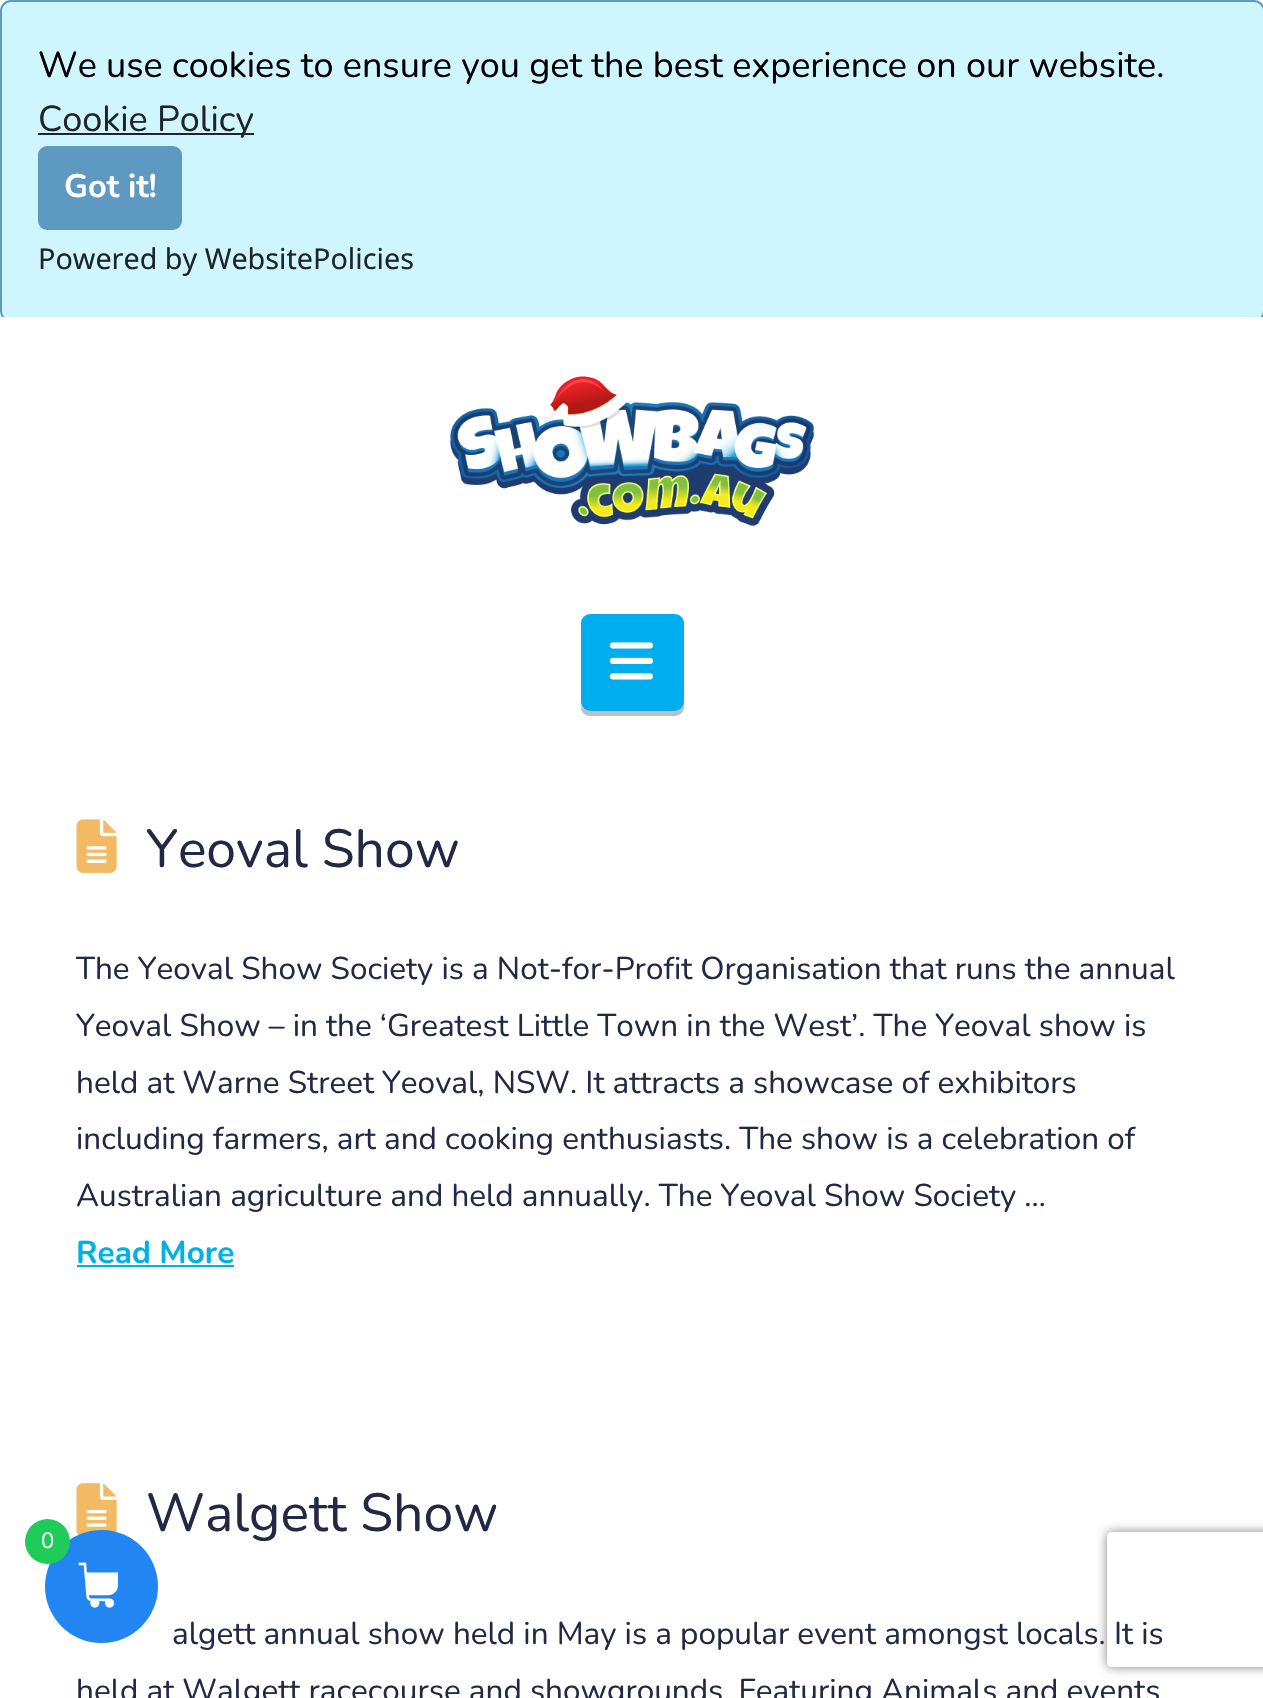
#include "include/core/SkBlurTypes.h"
#include "include/core/SkCanvas.h"
#include "include/core/SkData.h"
#include "include/core/SkFont.h"
#include "include/core/SkFontMgr.h"
#include "include/core/SkImage.h"
#include "include/core/SkMaskFilter.h"
#include "include/core/SkPaint.h"
#include "include/core/SkPathBuilder.h"
#include "include/core/SkTextBlob.h"
#include "include/effects/SkDashPathEffect.h"
#include "include/effects/SkGradientShader.h"
#include "include/utils/SkParsePath.h"

extern sk_sp<SkFontMgr> fontMgr;

static SkFont font(const char* family, int weight, float size, bool italic = false) {
    SkFontStyle style(weight, SkFontStyle::kNormal_Width,
        italic ? SkFontStyle::kItalic_Slant : SkFontStyle::kUpright_Slant);
    SkFont result(fontMgr->matchFamilyStyle(family, style), size);
    result.setSubpixel(true);
    return result;
}

static void drawLabel(SkCanvas* canvas, const char* s, float x, float y, const SkFont& font, SkColor color) {
    SkPaint ink(SkColor4f::FromColor(color));
    ink.setAntiAlias(true);
    canvas->drawString(s, x, y, font, ink);
}

static void fillRect(SkCanvas* canvas, float x, float y, float w, float h, SkColor color) {
    SkPaint ink(SkColor4f::FromColor(color));
    ink.setAntiAlias(true);
    canvas->drawRect(SkRect::MakeXYWH(x, y, w, h), ink);
}

static void fillRRect(SkCanvas* canvas, float x, float y, float w, float h, float radius, SkColor color) {
    SkPaint ink(SkColor4f::FromColor(color));
    ink.setAntiAlias(true);
    canvas->drawRoundRect(SkRect::MakeXYWH(x, y, w, h), radius, radius, ink);
}

static void drawPhoto(SkCanvas* canvas, const char* path, float x, float y, float w, float h) {
    auto image = SkImages::DeferredFromEncodedData(SkData::MakeFromFileName(path));
    canvas->drawImageRect(image, SkRect::MakeXYWH(x, y, w, h), SkSamplingOptions());
}

static SkPath parsePath(const char* data, bool evenOdd = false) {
    SkPath result = *SkParsePath::FromSVGString(data);
    if (evenOdd) result.setFillType(SkPathFillType::kEvenOdd);
    return result;
}

void draw(SkCanvas* canvas) {
    SkPaint paint;
    paint.setAntiAlias(true);
    canvas->clear(0xFFFFFFFF);
    canvas->save();
    canvas->clipRect(SkRect::MakeXYWH(0, 0, 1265, 317));
    paint.setColor(0xFFCFF5FF);
    canvas->drawRoundRect(SkRect::MakeXYWH(1, 1, 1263, 320), 10, 10, paint);
    paint.setStroke(true);
    paint.setStrokeWidth(2);
    paint.setColor(0xFF5E99C2);
    canvas->drawRoundRect(SkRect::MakeXYWH(1, 1, 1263, 320), 10, 10, paint);
    canvas->restore();
    SkFont font1 = font("Nunito", 400, 36);
    drawLabel(canvas, "We use cookies to ensure you get the best experience on our website.", 38, 77, font1, 0xFF000000);
    fillRect(canvas, 38, 133, 216, 2, 0xFF1F2526);
    drawLabel(canvas, "Cookie Policy", 38, 131, font1, 0xFF1F2526);
    fillRRect(canvas, 38, 146, 144, 84, 9, 0xFF5E99C2);
    SkFont font2 = font("Nunito", 700, 32.5f);
    drawLabel(canvas, "Got it!", 64, 197, font2, 0xFFFFFFFF);
    SkFont font3 = font("Noto Sans", 400, 28.75f);
    drawLabel(canvas, "Powered by WebsitePolicies", 38, 269, font3, 0xFF1F2526);
    drawPhoto(canvas, "assets/img5.png", 76, 1483, 41, 52);
    SkFont font4 = font("Nunito", 400, 53.5f);
    drawLabel(canvas, "Walgett Show", 146, 1531, font4, 0xFF222944);
    paint.setStroke(false);
    paint.setColor(0xFF2186F2);
    canvas->drawCircle(101.5f, 1586.5f, 56.5f, paint);
    paint.setColor(0xFF20CC59);
    canvas->drawCircle(47.5f, 1541.5f, 22.5f, paint);
    SkFont font5 = font("Nunito", 400, 22);
    drawLabel(canvas, "0", 41, 1548, font5, 0xFFFFFFFF);
    drawPhoto(canvas, "assets/img1.png", 78, 1562, 40, 46);
    drawPhoto(canvas, "assets/img2.png", 450, 376, 365, 151);
    paint.setColor(0xFFBFBFBF);
    canvas->drawPath(parsePath("M581 705V707C581 712 585 716 590 716H675C680 716 684 712 684 707V702C684 707 680 711 675 711H590C586 711 582 708 581 705Z"), paint);
    fillRRect(canvas, 581, 614, 103, 97, 9, 0xFF00AEEF);
    drawPhoto(canvas, "assets/img3.png", 609, 642, 45, 38);
    drawPhoto(canvas, "assets/img4.png", 76, 819, 41, 54);
    drawLabel(canvas, "Yeoval Show", 146, 867, font4, 0xFF222944);
    SkFont font6 = font("Nunito", 400, 31.5f);
    drawLabel(canvas, "The Yeoval Show Society is a Not-for-Profit Organisation that runs the annual", 76, 979, font6, 0xFF222944);
    drawLabel(canvas, "Yeoval Show – in the ‘Greatest Little Town in the West’. The Yeoval show is", 76, 1036, font6, 0xFF222944);
    drawLabel(canvas, "held at Warne Street Yeoval, NSW. It attracts a showcase of exhibitors", 76, 1093, font6, 0xFF222944);
    drawLabel(canvas, "including farmers, art and cooking enthusiasts. The show is a celebration of", 76, 1149, font6, 0xFF222944);
    drawLabel(canvas, "Australian agriculture and held annually. The Yeoval Show Society …", 76, 1206, font6, 0xFF222944);
    SkFont font7 = font("Nunito", 700, 31.5f);
    drawLabel(canvas, "Read More", 76, 1263, font7, 0xFF00B2E2);
    fillRect(canvas, 77, 1265, 157, 2, 0xFF00B2E2);
    drawLabel(canvas, "algett annual show held in May is a popular event amongst locals. It is", 172, 1644, font6, 0xFF222944);
    drawLabel(canvas, "held at Walgett racecourse and showgrounds. Featuring Animals and events", 76, 1701, font6, 0xFF222944);
    canvas->save();
    canvas->clipPath(parsePath("M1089 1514H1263V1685H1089ZM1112 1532H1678C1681 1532 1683 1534 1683 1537V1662C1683 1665 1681 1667 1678 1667H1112C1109 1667 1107 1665 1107 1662V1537C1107 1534 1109 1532 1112 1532Z", true), true);
    paint.setColor(0xFF808080);
    paint.setMaskFilter(SkMaskFilter::MakeBlur(kNormal_SkBlurStyle, 5.5f));
    canvas->drawRoundRect(SkRect::MakeXYWH(1107, 1532, 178, 135), 5, 5, paint);
    paint.setMaskFilter(nullptr);
    canvas->restore();
}
